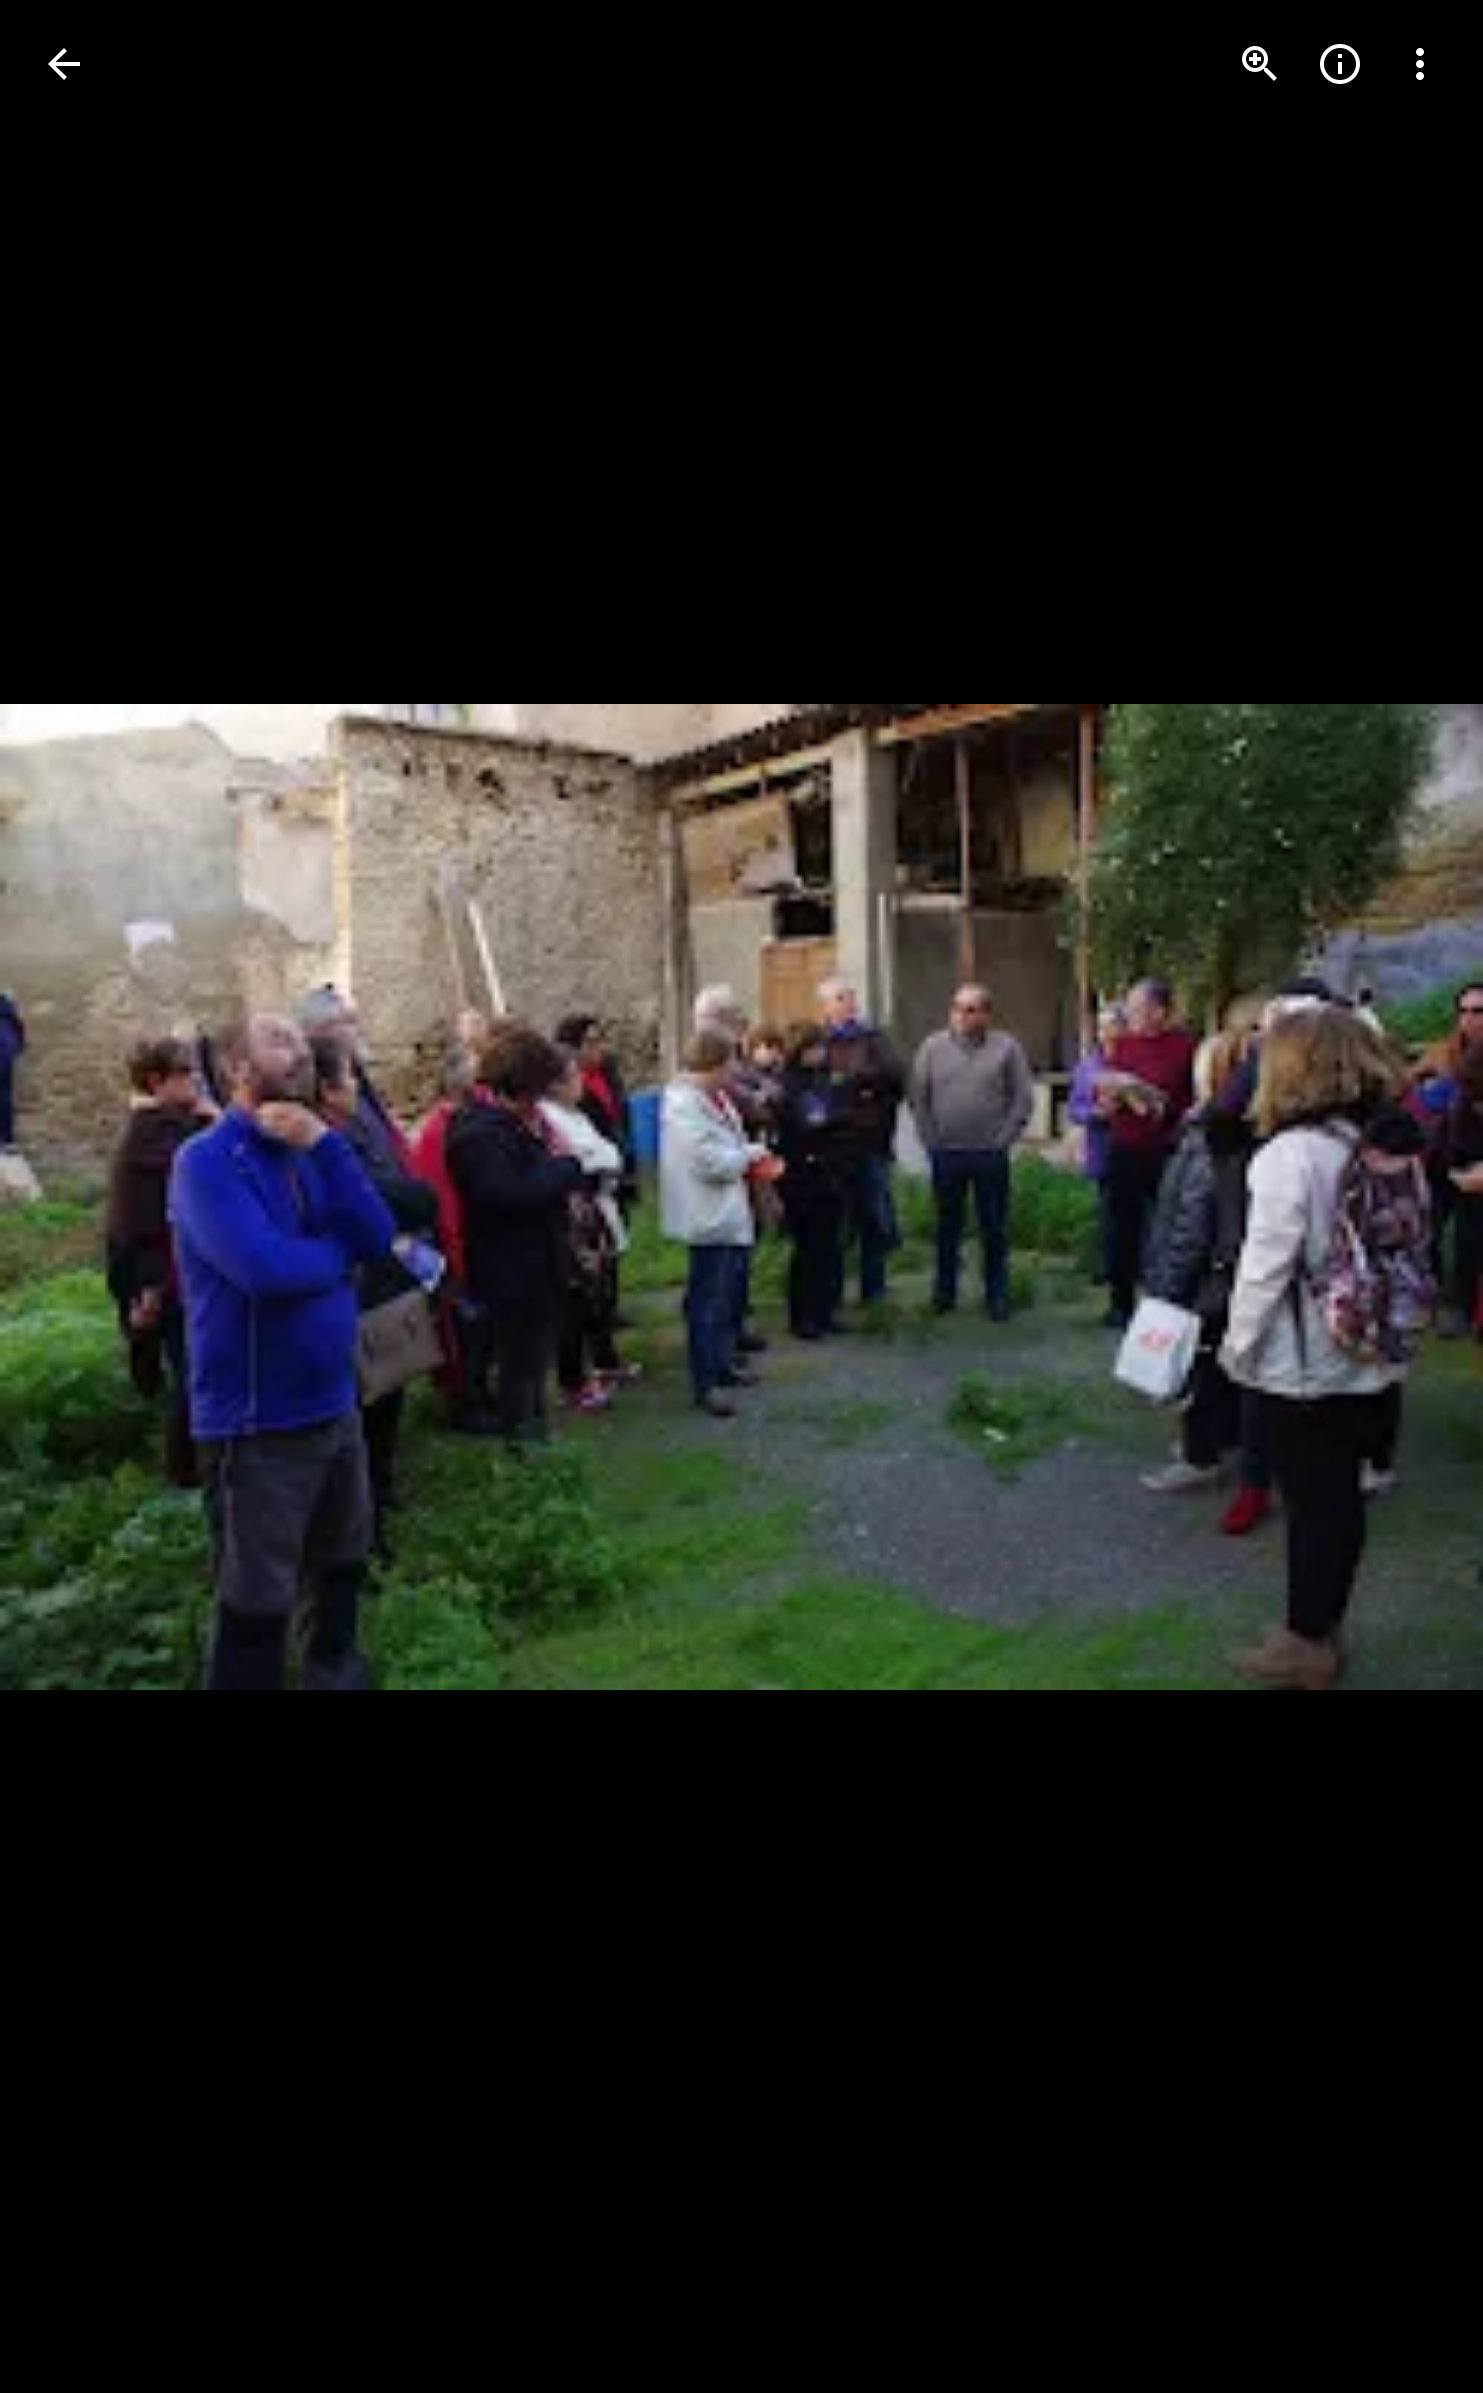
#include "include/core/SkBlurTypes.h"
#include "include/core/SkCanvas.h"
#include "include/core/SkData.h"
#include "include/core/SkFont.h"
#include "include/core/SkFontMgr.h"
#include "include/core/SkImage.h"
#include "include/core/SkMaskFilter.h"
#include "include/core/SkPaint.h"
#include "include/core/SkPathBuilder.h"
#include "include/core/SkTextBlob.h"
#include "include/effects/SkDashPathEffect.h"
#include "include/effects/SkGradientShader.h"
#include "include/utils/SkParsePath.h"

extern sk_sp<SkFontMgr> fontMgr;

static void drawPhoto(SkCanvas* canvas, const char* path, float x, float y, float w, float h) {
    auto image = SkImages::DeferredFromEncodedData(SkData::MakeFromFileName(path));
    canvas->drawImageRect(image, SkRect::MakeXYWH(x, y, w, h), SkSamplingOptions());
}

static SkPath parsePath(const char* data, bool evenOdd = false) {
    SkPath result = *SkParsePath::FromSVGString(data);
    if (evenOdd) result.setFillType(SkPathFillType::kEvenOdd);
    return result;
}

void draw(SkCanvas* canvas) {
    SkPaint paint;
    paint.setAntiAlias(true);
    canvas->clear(0xFF000000);
    paint.setColor(0xFFFFFFFF);
    canvas->drawPath(parsePath("M80 62H55.5L67 51L64 48L48 64L64 80L67 77L55.5 66H80Z"), paint);
    drawPhoto(canvas, "assets/img1.png", 1242, 46, 35, 35);
    drawPhoto(canvas, "assets/img2.png", 1320, 44, 40, 40);
    drawPhoto(canvas, "assets/img3.png", 1416, 48, 8, 32);
    drawPhoto(canvas, "assets/img4.png", 0, 704, 1483, 986);
}
